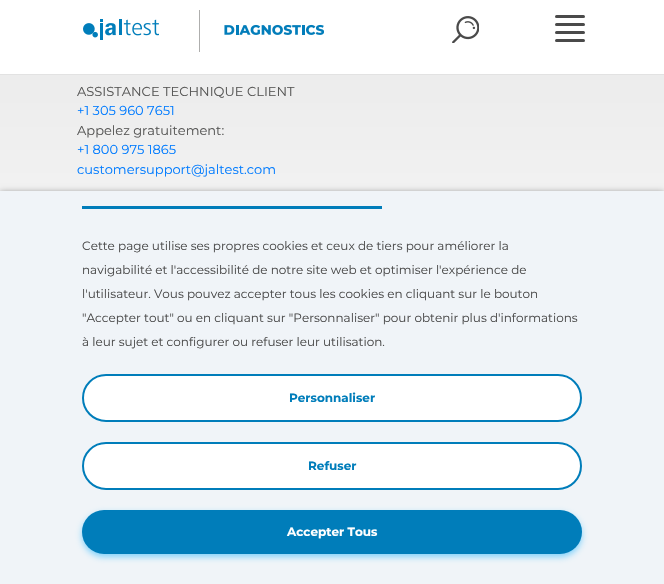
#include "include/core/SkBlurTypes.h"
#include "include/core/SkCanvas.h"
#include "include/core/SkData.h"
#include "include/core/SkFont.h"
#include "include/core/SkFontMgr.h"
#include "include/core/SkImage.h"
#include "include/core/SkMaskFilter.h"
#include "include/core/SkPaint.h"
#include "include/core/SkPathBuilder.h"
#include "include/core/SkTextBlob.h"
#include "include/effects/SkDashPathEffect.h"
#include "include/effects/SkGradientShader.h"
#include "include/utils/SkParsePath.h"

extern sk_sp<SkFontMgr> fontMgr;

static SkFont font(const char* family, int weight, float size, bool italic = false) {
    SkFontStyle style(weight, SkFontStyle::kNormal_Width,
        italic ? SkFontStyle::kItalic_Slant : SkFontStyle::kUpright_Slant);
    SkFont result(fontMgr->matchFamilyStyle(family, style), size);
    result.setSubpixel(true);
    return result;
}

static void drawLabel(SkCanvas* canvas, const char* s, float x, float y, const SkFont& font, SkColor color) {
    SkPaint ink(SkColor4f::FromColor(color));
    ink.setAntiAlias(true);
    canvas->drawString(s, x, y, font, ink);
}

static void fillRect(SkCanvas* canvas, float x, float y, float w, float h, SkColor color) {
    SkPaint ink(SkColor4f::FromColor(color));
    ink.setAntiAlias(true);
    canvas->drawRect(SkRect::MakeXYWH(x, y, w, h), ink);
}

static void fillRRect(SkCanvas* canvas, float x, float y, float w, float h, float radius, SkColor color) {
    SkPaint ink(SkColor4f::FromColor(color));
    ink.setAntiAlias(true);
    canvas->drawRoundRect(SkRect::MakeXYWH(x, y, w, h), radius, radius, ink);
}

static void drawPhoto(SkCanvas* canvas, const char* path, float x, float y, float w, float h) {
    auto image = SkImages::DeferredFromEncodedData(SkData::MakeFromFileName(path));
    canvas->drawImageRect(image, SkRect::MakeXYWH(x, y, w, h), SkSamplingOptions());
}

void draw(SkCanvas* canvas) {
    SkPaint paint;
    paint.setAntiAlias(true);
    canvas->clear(0xFFFFFFFF);
    fillRect(canvas, 0, 74, 664, 1, 0xFFE2E2E2);
    drawPhoto(canvas, "assets/img1.png", 83, 19, 76, 21);
    fillRect(canvas, 199, 10, 1, 42, 0xFFAEAEAD);
    drawPhoto(canvas, "assets/img2.png", 224, 24, 100, 11);
    drawPhoto(canvas, "assets/img3.png", 452, 16, 27, 27);
    fillRRect(canvas, 555, 15, 30, 3, 1.5f, 0xFF4A4A4A);
    fillRRect(canvas, 555, 23, 30, 3, 1.5f, 0xFF4A4A4A);
    fillRRect(canvas, 555, 31, 30, 3, 1.5f, 0xFF4A4A4A);
    fillRRect(canvas, 555, 39, 30, 3, 1.5f, 0xFF4A4A4A);
    {
        const SkColor colors[] = {0xFFE6E6E6, 0xFFFDFDFD, 0xFFFDFDFD};
        const float stops[] = {0, 0.51f, 1};
        const SkPoint ends[] = {{332, -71}, {332, 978}};
        paint.setShader(SkGradientShader::MakeLinear(ends, colors, stops, 3, SkTileMode::kClamp));
        paint.setAlpha(255);
    }
    canvas->drawRect(SkRect::MakeXYWH(0, 75, 664, 116), paint);
    SkFont font1 = font("Montserrat", 400, 13);
    drawLabel(canvas, "ASSISTANCE TECHNIQUE CLIENT", 77, 96, font1, 0xFF575756);
    drawLabel(canvas, "+1 305 960 7651", 77, 115, font1, 0xFF007BFF);
    drawLabel(canvas, "Appelez gratuitement:", 77, 135, font1, 0xFF575756);
    drawLabel(canvas, "+1 800 975 1865", 77, 154, font1, 0xFF007BFF);
    drawLabel(canvas, "customersupport@jaltest.com", 77, 174, font1, 0xFF007BFF);
    paint.setShader(nullptr);
    paint.setColor(0x66000000);
    paint.setMaskFilter(SkMaskFilter::MakeBlur(kNormal_SkBlurStyle, 3));
    canvas->drawRect(SkRect::MakeXYWH(0, 192, 664, 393), paint);
    paint.setMaskFilter(nullptr);
    fillRect(canvas, 0, 191, 664, 393, 0xFFF0F4F8);
    fillRect(canvas, 82, 206, 300, 3, 0xFF007DBA);
    SkFont font2 = font("Montserrat", 400, 12);
    drawLabel(canvas, "Cette page utilise ses propres cookies et ceux de tiers pour améliorer la", 82, 250, font2, 0xFF4A4A4A);
    drawLabel(canvas, "navigabilité et l'accessibilité de notre site web et optimiser l'expérience de", 82, 274, font2, 0xFF4A4A4A);
    drawLabel(canvas, "l'utilisateur. Vous pouvez accepter tous les cookies en cliquant sur le bouton", 82, 298, font2, 0xFF4A4A4A);
    drawLabel(canvas, "\"Accepter tout\" ou en cliquant sur \"Personnaliser\" pour obtenir plus d'informations", 82, 322, font2, 0xFF4A4A4A);
    drawLabel(canvas, "à leur sujet et configurer ou refuser leur utilisation.", 82, 346, font2, 0xFF4A4A4A);
    paint.setColor(0xFFFFFFFF);
    canvas->drawRoundRect(SkRect::MakeXYWH(83, 375, 498, 46), 23, 23, paint);
    paint.setStroke(true);
    paint.setStrokeWidth(2);
    paint.setColor(0xFF007DBA);
    canvas->drawRoundRect(SkRect::MakeXYWH(83, 375, 498, 46), 23, 23, paint);
    SkFont font3 = font("Montserrat", 700, 12);
    drawLabel(canvas, "Personnaliser", 289, 402, font3, 0xFF007DBA);
    paint.setStroke(false);
    paint.setColor(0xFFFFFFFF);
    canvas->drawRoundRect(SkRect::MakeXYWH(83, 443, 498, 46), 23, 23, paint);
    paint.setStroke(true);
    paint.setColor(0xFF007DBA);
    canvas->drawRoundRect(SkRect::MakeXYWH(83, 443, 498, 46), 23, 23, paint);
    drawLabel(canvas, "Refuser", 308, 470, font3, 0xFF007DBA);
    paint.setStroke(false);
    paint.setColor(0x7500ABFF);
    paint.setMaskFilter(SkMaskFilter::MakeBlur(kNormal_SkBlurStyle, 3));
    canvas->drawRoundRect(SkRect::MakeXYWH(82, 513, 500, 44), 22, 22, paint);
    paint.setMaskFilter(nullptr);
    fillRRect(canvas, 82, 510, 500, 44, 22, 0xFF007DBA);
    drawLabel(canvas, "Accepter Tous", 287, 536, font3, 0xFFFFFFFF);
}
